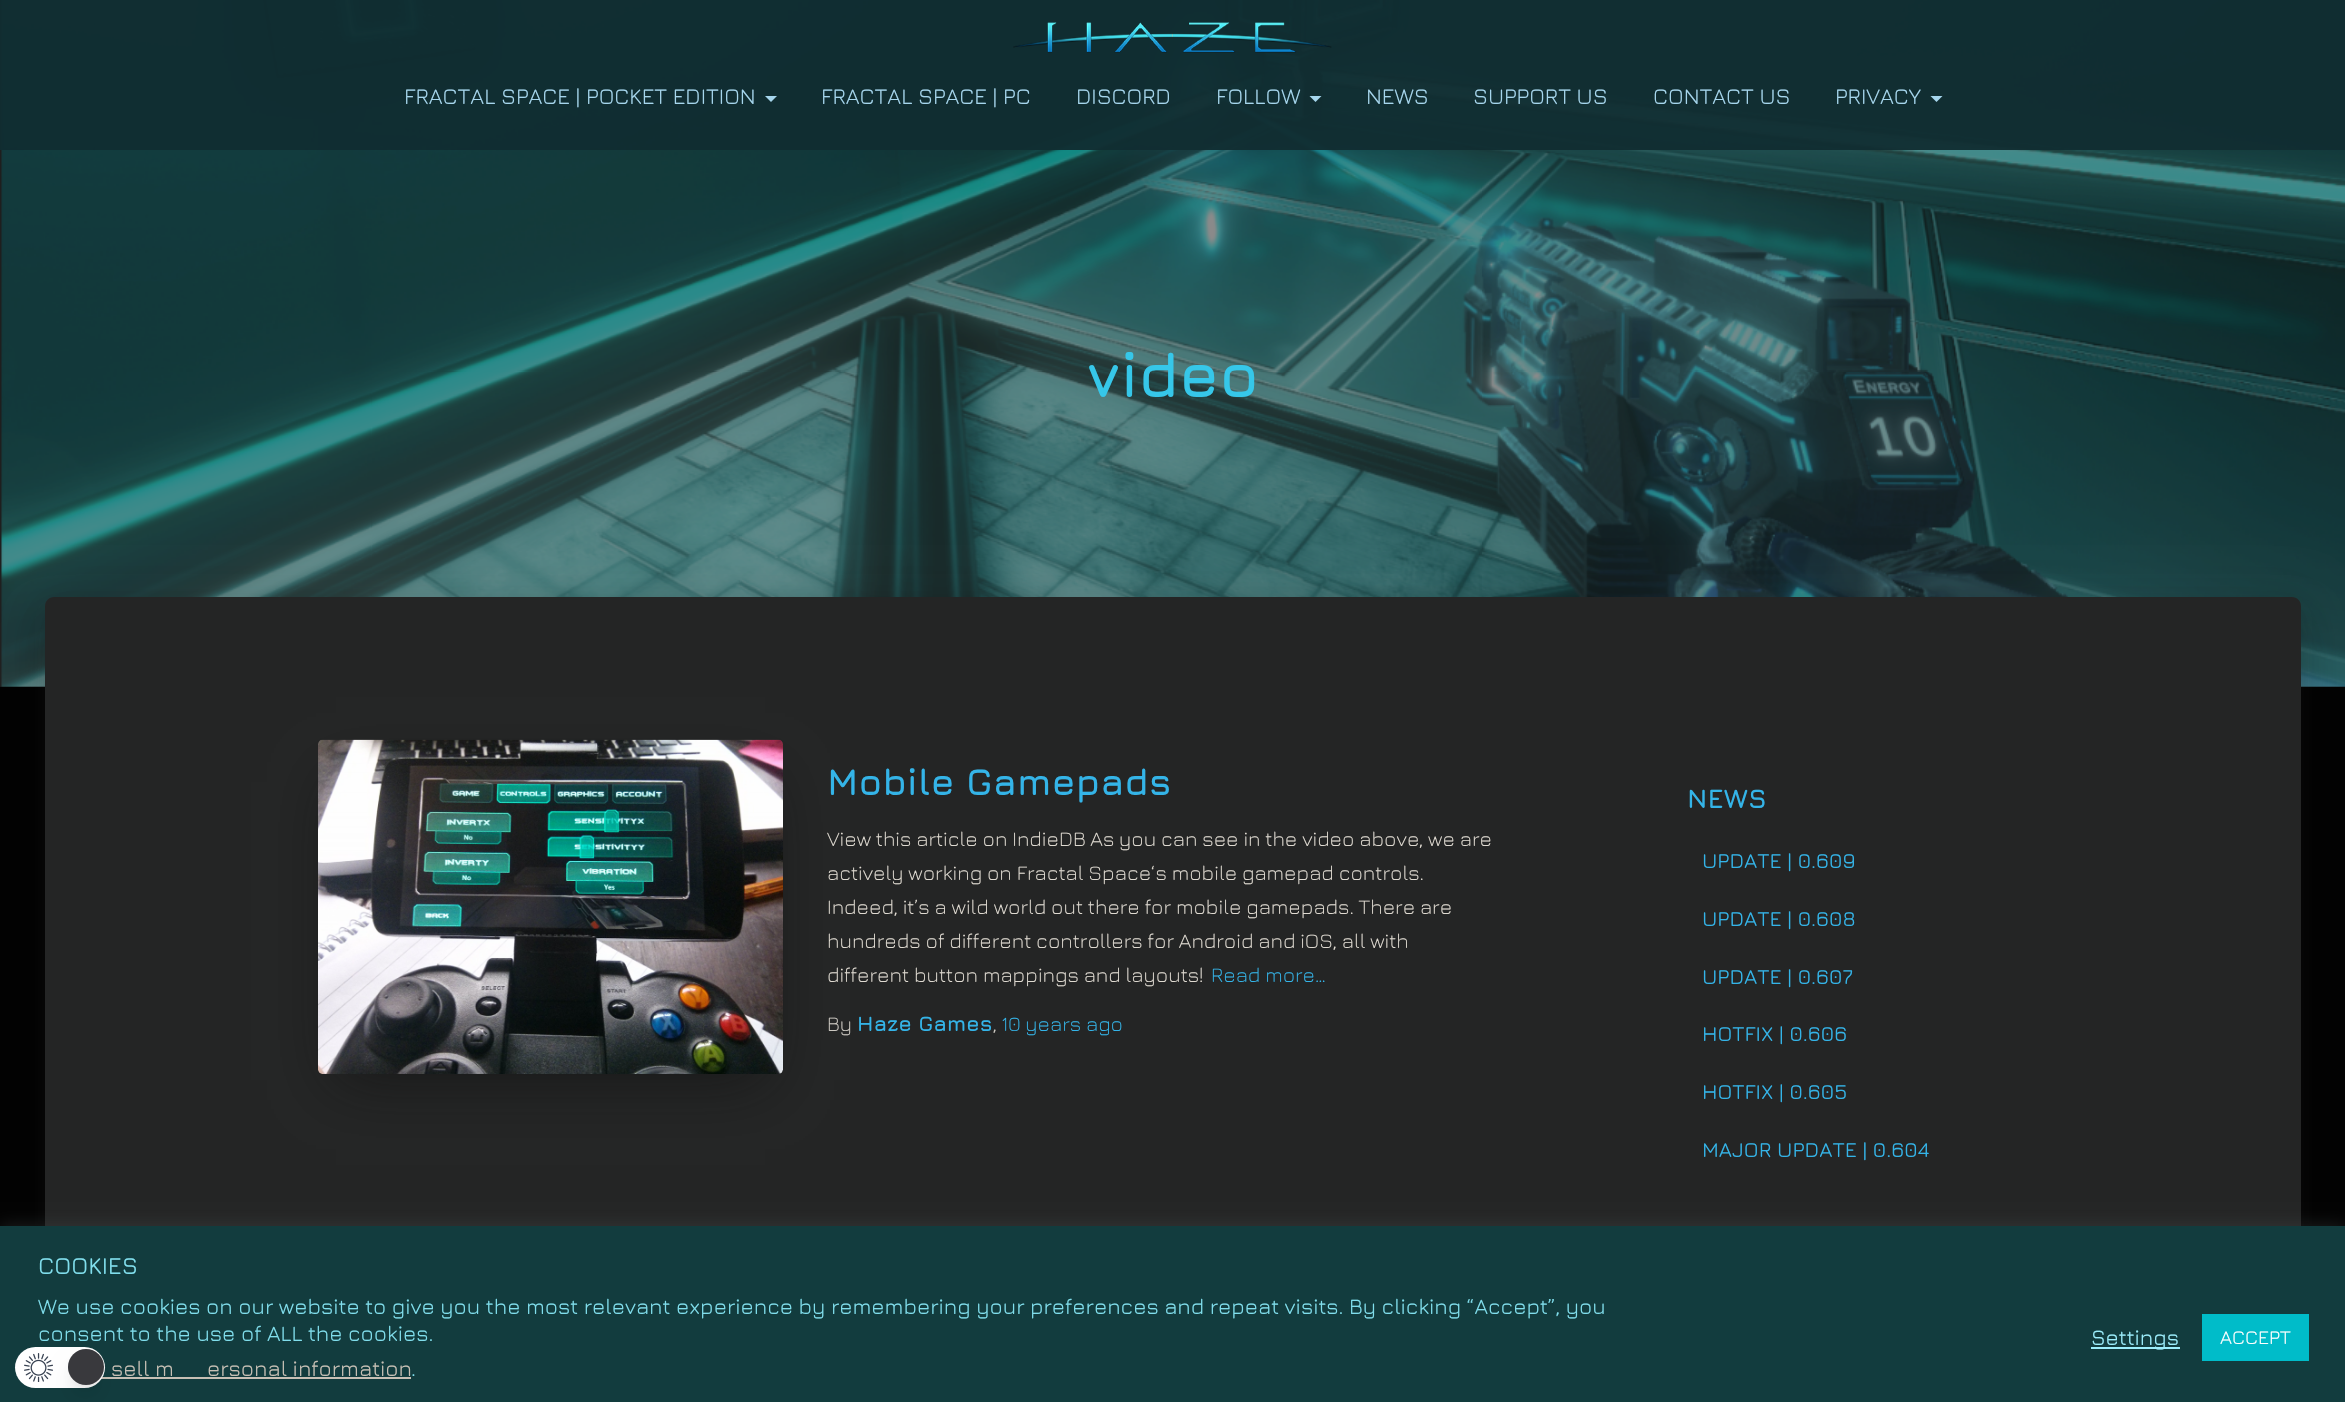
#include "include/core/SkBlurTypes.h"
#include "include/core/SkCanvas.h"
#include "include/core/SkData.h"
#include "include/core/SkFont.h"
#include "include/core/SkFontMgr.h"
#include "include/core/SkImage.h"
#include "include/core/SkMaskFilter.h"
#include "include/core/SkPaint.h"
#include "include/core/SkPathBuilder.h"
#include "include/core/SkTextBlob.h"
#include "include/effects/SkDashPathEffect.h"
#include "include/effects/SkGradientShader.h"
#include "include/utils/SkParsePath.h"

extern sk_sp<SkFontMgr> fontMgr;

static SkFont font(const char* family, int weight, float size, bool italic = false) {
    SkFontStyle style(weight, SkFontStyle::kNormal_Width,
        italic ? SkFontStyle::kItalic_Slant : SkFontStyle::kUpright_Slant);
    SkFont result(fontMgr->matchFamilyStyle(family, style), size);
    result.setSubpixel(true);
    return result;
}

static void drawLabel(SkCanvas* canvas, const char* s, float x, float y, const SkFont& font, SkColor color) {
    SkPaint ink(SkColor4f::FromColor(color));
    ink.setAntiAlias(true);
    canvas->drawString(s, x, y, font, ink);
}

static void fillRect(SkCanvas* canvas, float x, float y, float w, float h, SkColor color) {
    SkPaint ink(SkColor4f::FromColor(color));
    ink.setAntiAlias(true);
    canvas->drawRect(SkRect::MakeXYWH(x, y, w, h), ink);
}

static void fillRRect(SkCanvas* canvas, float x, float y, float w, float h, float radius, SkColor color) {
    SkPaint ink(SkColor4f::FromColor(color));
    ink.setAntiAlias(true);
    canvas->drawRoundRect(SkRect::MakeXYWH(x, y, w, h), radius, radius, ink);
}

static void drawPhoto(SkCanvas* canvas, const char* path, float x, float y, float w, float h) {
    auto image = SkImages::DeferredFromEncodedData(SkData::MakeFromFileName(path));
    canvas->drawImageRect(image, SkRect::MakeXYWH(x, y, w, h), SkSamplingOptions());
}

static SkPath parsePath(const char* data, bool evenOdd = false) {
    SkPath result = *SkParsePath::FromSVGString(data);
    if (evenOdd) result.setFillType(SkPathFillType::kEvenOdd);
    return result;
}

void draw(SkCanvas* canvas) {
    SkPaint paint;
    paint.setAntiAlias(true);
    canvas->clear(0xFF000000);
    fillRect(canvas, 0, 686, 2345, 1, 0xFF0B0A0A);
    drawPhoto(canvas, "assets/img2.png", 0, 0, 2345, 687);
    fillRect(canvas, 0, 0, 2345, 150, 0xF2102C30);
    drawPhoto(canvas, "assets/img1.png", 1013, 22, 319, 31);
    SkFont font1 = font("Jura", 400, 22.5f);
    drawLabel(canvas, "FRACTAL SPACE | POCKET EDITION", 404, 104, font1, 0xFFA6D6ED);
    paint.setColor(0xFFA6D6ED);
    canvas->drawPath(parsePath("M765 96H777L771 102Z"), paint);
    drawLabel(canvas, "FRACTAL SPACE | PC", 821, 104, font1, 0xFFA6D6ED);
    drawLabel(canvas, "DISCORD", 1076, 104, font1, 0xFFA6D6ED);
    drawLabel(canvas, "FOLLOW", 1216, 104, font1, 0xFFA6D6ED);
    canvas->drawPath(parsePath("M1309.5 96H1321.5L1315.5 102Z"), paint);
    drawLabel(canvas, "NEWS", 1366, 104, font1, 0xFFA6D6ED);
    drawLabel(canvas, "SUPPORT US", 1473, 104, font1, 0xFFA6D6ED);
    drawLabel(canvas, "CONTACT US", 1653, 104, font1, 0xFFA6D6ED);
    drawLabel(canvas, "PRIVACY", 1835, 104, font1, 0xFFA6D6ED);
    canvas->drawPath(parsePath("M1930.5 96H1942.5L1936.5 102Z"), paint);
    SkFont font2 = font("Jura", 700, 63);
    drawLabel(canvas, "video", 1087, 397, font2, 0xFF36C7E9);
    paint.setColor(0x330D0D0D);
    paint.setMaskFilter(SkMaskFilter::MakeBlur(kNormal_SkBlurStyle, 7.5f));
    canvas->drawRoundRect(SkRect::MakeXYWH(53, 617, 2241, 712), 1.5f, 1.5f, paint);
    paint.setMaskFilter(nullptr);
    paint.setColor(0x1F0D0D0D);
    paint.setMaskFilter(SkMaskFilter::MakeBlur(kNormal_SkBlurStyle, 22.5f));
    canvas->drawRoundRect(SkRect::MakeXYWH(38, 599, 2271, 742), 17, 17, paint);
    paint.setMaskFilter(nullptr);
    paint.setColor(0x240D0D0D);
    paint.setMaskFilter(SkMaskFilter::MakeBlur(kNormal_SkBlurStyle, 18));
    canvas->drawRoundRect(SkRect::MakeXYWH(42, 618, 2262, 734), 12, 12, paint);
    paint.setMaskFilter(nullptr);
    paint.setColor(0xFF242525);
    canvas->drawPath(parsePath("M54 597H2292C2297 597 2301 601 2301 606V1325H45V606C45 601 49 597 54 597Z"), paint);
    paint.setColor(0x8F0D0D0D);
    paint.setMaskFilter(SkMaskFilter::MakeBlur(kNormal_SkBlurStyle, 28.5f));
    canvas->drawRect(SkRect::MakeXYWH(336, 782, 429, 298), paint);
    paint.setMaskFilter(nullptr);
    drawPhoto(canvas, "assets/img3.png", 318, 739, 465, 335);
    SkFont font3 = font("Jura", 700, 37.5f);
    drawLabel(canvas, "Mobile Gamepads", 827, 795, font3, 0xFF34B4E8);
    SkFont font4 = font("Jura", 300, 21);
    drawLabel(canvas, "View this article on IndieDB As you can see in the video above, we are", 827, 846, font4, 0xFFDFDAD1);
    drawLabel(canvas, "actively working on Fractal Space‘s mobile gamepad controls.", 827, 880, font4, 0xFFDFDAD1);
    drawLabel(canvas, "Indeed, it’s a wild world out there for mobile gamepads. There are", 827, 914, font4, 0xFFDFDAD1);
    drawLabel(canvas, "hundreds of different controllers for Android and iOS, all with", 827, 948, font4, 0xFFDFDAD1);
    drawLabel(canvas, "different button mappings and layouts!", 827, 982, font4, 0xFFDFDAD1);
    drawLabel(canvas, "Read more…", 1211, 982, font4, 0xFF34B4E8);
    drawLabel(canvas, "By", 827, 1031, font4, 0xFFCCC8C1);
    SkFont font5 = font("Jura", 700, 21);
    drawLabel(canvas, "Haze Games", 857, 1031, font5, 0xFF34B4E8);
    drawLabel(canvas, ",", 993, 1031, font4, 0xFFCCC8C1);
    drawLabel(canvas, "10 years ago", 1001, 1031, font4, 0xFF34B4E8);
    SkFont font6 = font("Jura", 700, 27);
    drawLabel(canvas, "NEWS", 1687, 808, font6, 0xFF34B4E8);
    SkFont font7 = font("Jura", 500, 21);
    drawLabel(canvas, "UPDATE | 0.609", 1702, 868, font7, 0xFF34B4E8);
    drawLabel(canvas, "UPDATE | 0.608", 1702, 926, font7, 0xFF34B4E8);
    drawLabel(canvas, "UPDATE | 0.607", 1702, 984, font7, 0xFF34B4E8);
    drawLabel(canvas, "HOTFIX | 0.606", 1702, 1041, font7, 0xFF34B4E8);
    drawLabel(canvas, "HOTFIX | 0.605", 1702, 1099, font7, 0xFF34B4E8);
    drawLabel(canvas, "MAJOR UPDATE | 0.604", 1702, 1157, font7, 0xFF34B4E8);
    paint.setColor(0x4D505454);
    paint.setMaskFilter(SkMaskFilter::MakeBlur(kNormal_SkBlurStyle, 7.5f));
    canvas->drawRect(SkRect::MakeXYWH(0, 1224, 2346, 177), paint);
    paint.setMaskFilter(nullptr);
    fillRect(canvas, 0, 1226, 2345, 176, 0xFF123C3E);
    SkFont font8 = font("Jura", 500, 24);
    drawLabel(canvas, "COOKIES", 38, 1274, font8, 0xFF80DEEC);
    SkFont font9 = font("Jura", 400, 22);
    drawLabel(canvas, "We use cookies on our website to give you the most relevant experience by remembering your preferences and repeat visits. By clicking “Accept”, you", 38, 1314, font9, 0xFF80DEEC);
    drawLabel(canvas, "consent to the use of ALL the cookies.", 38, 1341, font9, 0xFF80DEEC);
    drawLabel(canvas, "sell m", 111, 1376, font9, 0xFFC7C0B5);
    fillRect(canvas, 101, 1377, 310, 2, 0xFFC7C0B5);
    drawLabel(canvas, "ersonal information", 207, 1376, font9, 0xFFC7C0B5);
    drawLabel(canvas, ".", 411, 1376, font9, 0xFF80DEEC);
    fillRect(canvas, 2091, 1347, 89, 2, 0xFF9CEEFC);
    drawLabel(canvas, "Settings", 2091, 1345, font9, 0xFF9CEEFC);
    fillRect(canvas, 2202, 1314, 107, 47, 0xFF00BCC9);
    SkFont font10 = font("Jura", 400, 19.5f);
    drawLabel(canvas, "ACCEPT", 2220, 1344, font10, 0xFFFFFFFF);
    fillRRect(canvas, 15, 1347, 90, 41, 20.5f, 0xFFFFFFFF);
    paint.setStroke(true);
    paint.setStrokeWidth(1.8f);
    paint.setStrokeCap(SkPaint::kRound_Cap);
    paint.setStrokeJoin(SkPaint::kRound_Join);
    paint.setColor(0xFF374151);
    canvas->drawPath(parsePath("M95 1372.5C84 1377 73 1366 77.5 1355C62 1361.5 70.5 1385 86.5 1380C90.5 1379 93.5 1376 95 1372.5Z"), paint);
    paint.setStroke(false);
    paint.setColor(0x1A000000);
    paint.setMaskFilter(SkMaskFilter::MakeBlur(kNormal_SkBlurStyle, 4.5f));
    canvas->drawRoundRect(SkRect::MakeXYWH(74, 1361, 24, 24), 12, 12, paint);
    paint.setMaskFilter(nullptr);
    drawPhoto(canvas, "assets/img4.png", 24, 1353, 29, 29);
    paint.setMaskFilter(SkMaskFilter::MakeBlur(kNormal_SkBlurStyle, 11));
    canvas->drawRoundRect(SkRect::MakeXYWH(72, 1368, 27, 27), 13.5f, 13.5f, paint);
    paint.setMaskFilter(nullptr);
    paint.setColor(0xFF39393D);
    canvas->drawCircle(86, 1367, 18, paint);
}
